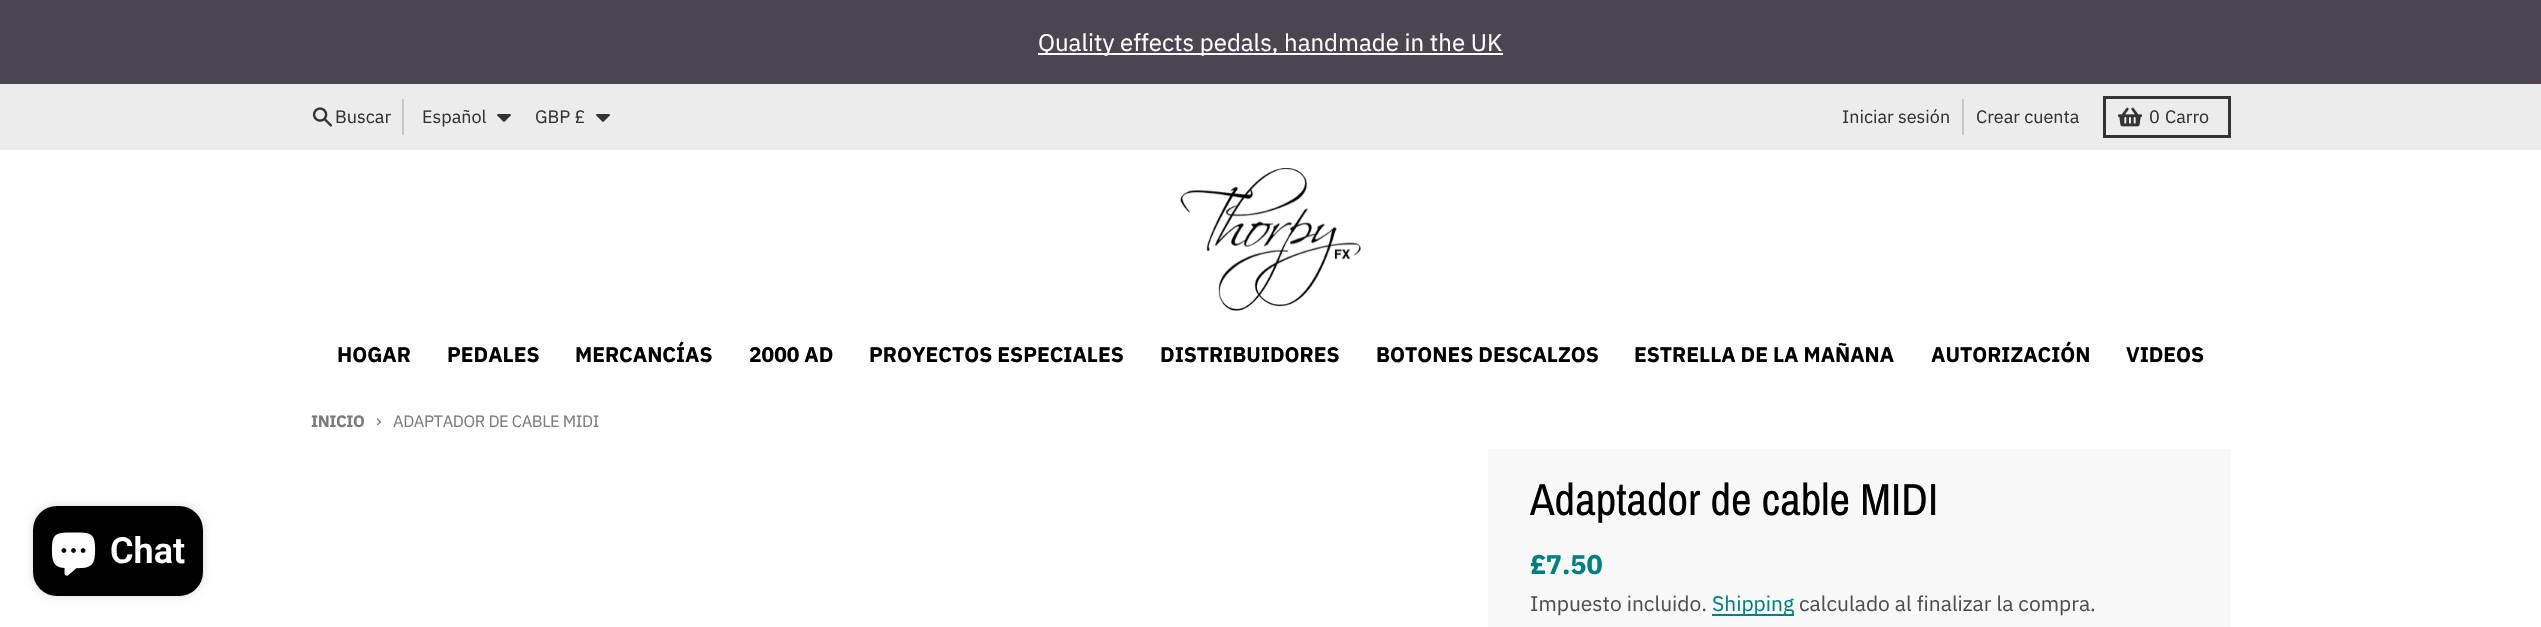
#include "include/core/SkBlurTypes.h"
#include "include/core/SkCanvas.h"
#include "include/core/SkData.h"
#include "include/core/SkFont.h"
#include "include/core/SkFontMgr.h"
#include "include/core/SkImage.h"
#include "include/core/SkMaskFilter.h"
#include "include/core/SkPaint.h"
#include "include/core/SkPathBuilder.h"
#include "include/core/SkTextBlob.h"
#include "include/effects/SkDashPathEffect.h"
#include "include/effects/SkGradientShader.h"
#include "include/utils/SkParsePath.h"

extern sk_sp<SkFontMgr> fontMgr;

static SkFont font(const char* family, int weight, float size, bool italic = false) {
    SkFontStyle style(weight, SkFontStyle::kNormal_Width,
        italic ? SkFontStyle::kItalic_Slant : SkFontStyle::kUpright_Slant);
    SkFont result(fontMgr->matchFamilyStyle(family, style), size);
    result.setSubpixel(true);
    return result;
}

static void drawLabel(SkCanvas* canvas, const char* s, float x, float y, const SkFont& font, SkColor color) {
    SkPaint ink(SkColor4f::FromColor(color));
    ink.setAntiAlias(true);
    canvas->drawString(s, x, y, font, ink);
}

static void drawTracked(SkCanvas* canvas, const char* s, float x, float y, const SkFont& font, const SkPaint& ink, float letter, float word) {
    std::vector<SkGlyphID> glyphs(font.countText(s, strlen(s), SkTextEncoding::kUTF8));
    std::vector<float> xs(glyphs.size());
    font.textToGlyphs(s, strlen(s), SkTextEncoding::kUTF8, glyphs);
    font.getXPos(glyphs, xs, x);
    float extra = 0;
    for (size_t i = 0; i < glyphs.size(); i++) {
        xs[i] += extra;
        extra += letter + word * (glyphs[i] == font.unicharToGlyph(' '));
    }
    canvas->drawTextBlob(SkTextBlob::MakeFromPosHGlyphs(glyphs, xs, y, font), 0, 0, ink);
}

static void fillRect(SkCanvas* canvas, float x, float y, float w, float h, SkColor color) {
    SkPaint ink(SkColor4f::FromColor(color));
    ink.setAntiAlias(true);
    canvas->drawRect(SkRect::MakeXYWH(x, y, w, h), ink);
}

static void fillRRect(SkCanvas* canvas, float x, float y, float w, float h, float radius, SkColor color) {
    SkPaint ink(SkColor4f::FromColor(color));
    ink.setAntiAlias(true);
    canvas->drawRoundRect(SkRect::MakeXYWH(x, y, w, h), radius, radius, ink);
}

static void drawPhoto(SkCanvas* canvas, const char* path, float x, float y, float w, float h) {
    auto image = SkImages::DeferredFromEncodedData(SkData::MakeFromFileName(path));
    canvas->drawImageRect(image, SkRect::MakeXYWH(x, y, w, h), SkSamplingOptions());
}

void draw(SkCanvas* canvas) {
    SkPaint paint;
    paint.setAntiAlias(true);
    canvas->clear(0xFFECECEC);
    fillRect(canvas, 0, 0, 2541, 84, 0xFF4A4551);
    fillRect(canvas, 1038, 53, 465, 2, 0xFFFFFFFF);
    SkFont font1 = font("IBM Plex Sans", 400, 24);
    drawLabel(canvas, "Quality effects pedals, handmade in the UK", 1038, 51, font1, 0xFFFFFFFF);
    drawPhoto(canvas, "assets/img1.png", 312, 107, 21, 20);
    SkFont font2 = font("IBM Plex Sans", 400, 18);
    drawLabel(canvas, "Buscar", 335, 123, font2, 0xFF333333);
    fillRect(canvas, 402, 99, 2, 36, 0xFFC7C7C7);
    drawLabel(canvas, "Español", 422, 123, font2, 0xFF333333);
    drawPhoto(canvas, "assets/img2.png", 497, 114, 14, 8);
    drawLabel(canvas, "GBP £", 535, 123, font2, 0xFF333333);
    drawPhoto(canvas, "assets/img2.png", 596, 114, 14, 8);
    drawLabel(canvas, "Iniciar sesión", 1842, 123, font2, 0xFF333333);
    fillRect(canvas, 1962, 99, 2, 36, 0xFFC7C7C7);
    drawLabel(canvas, "Crear cuenta", 1976, 123, font2, 0xFF333333);
    paint.setStroke(true);
    paint.setStrokeWidth(3);
    paint.setColor(0xFF333333);
    canvas->drawRect(SkRect::MakeXYWH(2104.5f, 97.5f, 125, 39), paint);
    drawPhoto(canvas, "assets/img3.png", 2118, 107, 24, 20);
    drawLabel(canvas, "0", 2149, 123, font2, 0xFF333333);
    drawLabel(canvas, "Carro", 2165, 123, font2, 0xFF333333);
    fillRect(canvas, 0, 150, 2541, 477, 0xFFFFFFFF);
    drawPhoto(canvas, "assets/img4.png", 1180, 168, 181, 143);
    SkFont font3 = font("IBM Plex Sans", 700, 21);
    drawLabel(canvas, "HOGAR", 337, 362, font3, 0xFF000000);
    drawLabel(canvas, "PEDALES", 447, 362, font3, 0xFF000000);
    drawLabel(canvas, "MERCANCÍAS", 575, 362, font3, 0xFF000000);
    drawLabel(canvas, "2000 AD", 749, 362, font3, 0xFF000000);
    drawLabel(canvas, "PROYECTOS ESPECIALES", 869, 362, font3, 0xFF000000);
    drawLabel(canvas, "DISTRIBUIDORES", 1160, 362, font3, 0xFF000000);
    drawLabel(canvas, "BOTONES DESCALZOS", 1376, 362, font3, 0xFF000000);
    drawLabel(canvas, "ESTRELLA DE LA MAÑANA", 1634, 362, font3, 0xFF000000);
    drawLabel(canvas, "AUTORIZACIÓN", 1931, 362, font3, 0xFF000000);
    drawLabel(canvas, "VIDEOS", 2126, 362, font3, 0xFF000000);
    paint.setStroke(false);
    paint.setColor(0x26000000);
    paint.setMaskFilter(SkMaskFilter::MakeBlur(kNormal_SkBlurStyle, 4));
    canvas->drawRoundRect(SkRect::MakeXYWH(33, 506, 170, 90), 24, 24, paint);
    paint.setMaskFilter(nullptr);
    fillRRect(canvas, 33, 506, 170, 90, 24, 0xFF000000);
    drawPhoto(canvas, "assets/img5.png", 51, 532, 45, 44);
    SkFont font4 = font("Roboto", 600, 36);
    drawLabel(canvas, "Chat", 110, 563, font4, 0xFFFFFFFF);
    SkFont font5 = font("IBM Plex Sans", 700, 16.5f);
    paint.setColor(0xFF7B7B7B);
    drawTracked(canvas, "INICIO", 311, 427, font5, paint, -0.4f, 0);
    drawTracked(canvas, "›", 376, 427, font2, paint, -0.4f, 0);
    SkFont font6 = font("IBM Plex Sans", 400, 16.5f);
    drawTracked(canvas, "ADAPTADOR DE CABLE MIDI", 393, 427, font6, paint, -0.4f, 0);
    fillRect(canvas, 1488, 449, 743, 178, 0xFFF8F8F8);
    SkFont font7 = font("Archivo Narrow", 400, 45);
    drawLabel(canvas, "Adaptador de cable MIDI", 1530, 515, font7, 0xFF000000);
    SkFont font8 = font("IBM Plex Sans", 700, 27);
    drawLabel(canvas, "£7.50", 1530, 574, font8, 0xFF008080);
    SkFont font9 = font("IBM Plex Sans", 400, 21);
    drawLabel(canvas, "Impuesto incluido.", 1530, 611, font9, 0xFF4F4F4F);
    fillRect(canvas, 1712, 614, 82, 2, 0xFF008080);
    drawLabel(canvas, "Shipping", 1712, 611, font9, 0xFF008080);
    drawLabel(canvas, "calculado al finalizar la compra.", 1799, 611, font9, 0xFF4F4F4F);
}
